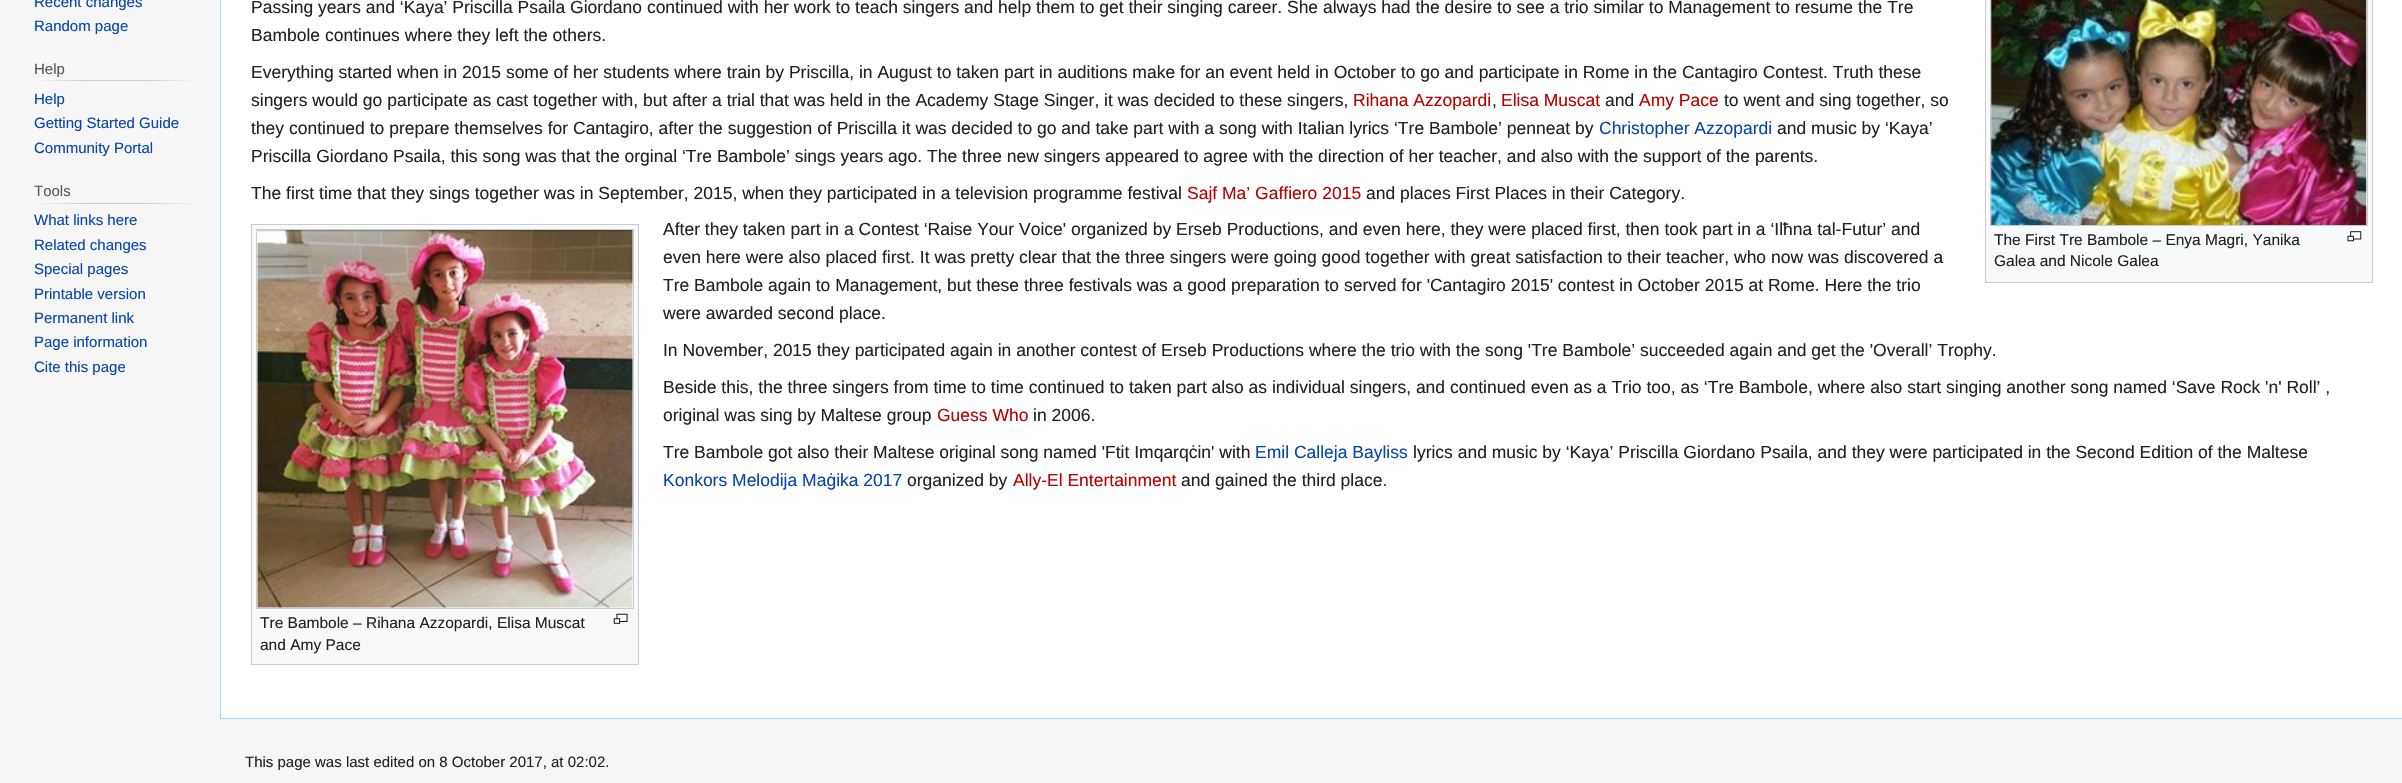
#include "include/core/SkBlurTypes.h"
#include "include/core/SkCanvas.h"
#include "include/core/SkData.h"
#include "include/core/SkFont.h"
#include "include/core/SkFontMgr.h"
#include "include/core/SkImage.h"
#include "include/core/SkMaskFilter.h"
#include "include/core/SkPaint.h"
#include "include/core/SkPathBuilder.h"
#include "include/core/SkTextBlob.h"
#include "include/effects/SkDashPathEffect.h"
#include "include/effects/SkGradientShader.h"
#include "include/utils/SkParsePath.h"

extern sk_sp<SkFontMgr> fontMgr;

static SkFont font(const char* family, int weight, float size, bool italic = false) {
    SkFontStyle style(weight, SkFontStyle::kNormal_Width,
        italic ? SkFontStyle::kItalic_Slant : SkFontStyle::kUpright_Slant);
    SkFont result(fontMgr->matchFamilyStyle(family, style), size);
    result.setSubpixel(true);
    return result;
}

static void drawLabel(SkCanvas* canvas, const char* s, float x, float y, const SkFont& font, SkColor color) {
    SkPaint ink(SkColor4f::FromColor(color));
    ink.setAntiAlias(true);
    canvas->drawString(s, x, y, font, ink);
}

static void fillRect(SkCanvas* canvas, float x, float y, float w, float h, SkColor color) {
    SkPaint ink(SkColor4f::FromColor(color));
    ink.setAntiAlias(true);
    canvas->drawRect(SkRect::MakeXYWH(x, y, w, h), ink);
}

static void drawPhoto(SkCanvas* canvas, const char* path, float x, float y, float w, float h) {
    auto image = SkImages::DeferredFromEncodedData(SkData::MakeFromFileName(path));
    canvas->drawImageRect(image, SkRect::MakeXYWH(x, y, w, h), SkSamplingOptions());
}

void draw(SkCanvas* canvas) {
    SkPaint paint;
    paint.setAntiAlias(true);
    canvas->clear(0xFFF6F6F6);
    SkFont font1 = font("Liberation Sans", 400, 15);
    drawLabel(canvas, "Recent changes", 34, 7, font1, 0xFF0645AD);
    drawLabel(canvas, "Random page", 34, 31, font1, 0xFF0645AD);
    {
        const SkColor colors[] = {0xFFF6F6F6, 0xFFC8CCD1, 0xFFC8CCD1, 0xFFF6F6F6};
        const float stops[] = {0, 0.33f, 0.66f, 1};
        const SkPoint ends[] = {{34, 81}, {198, 81}};
        paint.setShader(SkGradientShader::MakeLinear(ends, colors, stops, 4, SkTileMode::kClamp));
        paint.setAlpha(255);
    }
    canvas->drawRect(SkRect::MakeXYWH(34, 80, 164, 1), paint);
    drawLabel(canvas, "Help", 34, 74, font1, 0xFF54595D);
    drawLabel(canvas, "Help", 34, 104, font1, 0xFF0645AD);
    drawLabel(canvas, "Getting Started Guide", 34, 128, font1, 0xFF0645AD);
    drawLabel(canvas, "Community Portal", 34, 153, font1, 0xFF0645AD);
    {
        const SkColor colors[] = {0xFFF6F6F6, 0xFFC8CCD1, 0xFFC8CCD1, 0xFFF6F6F6};
        const float stops[] = {0, 0.33f, 0.66f, 1};
        const SkPoint ends[] = {{34, 203}, {198, 203}};
        paint.setShader(SkGradientShader::MakeLinear(ends, colors, stops, 4, SkTileMode::kClamp));
        paint.setAlpha(255);
    }
    canvas->drawRect(SkRect::MakeXYWH(34, 203, 164, 1), paint);
    drawLabel(canvas, "Tools", 34, 196, font1, 0xFF54595D);
    drawLabel(canvas, "What links here", 34, 225, font1, 0xFF0645AD);
    drawLabel(canvas, "Related changes", 34, 250, font1, 0xFF0645AD);
    drawLabel(canvas, "Special pages", 34, 274, font1, 0xFF0645AD);
    drawLabel(canvas, "Printable version", 34, 299, font1, 0xFF0645AD);
    drawLabel(canvas, "Permanent link", 34, 323, font1, 0xFF0645AD);
    drawLabel(canvas, "Page information", 34, 347, font1, 0xFF0645AD);
    drawLabel(canvas, "Cite this page", 34, 372, font1, 0xFF0645AD);
    fillRect(canvas, 221, 0, 2181, 718, 0xFFFFFFFF);
    fillRect(canvas, 220, 718, 2182, 1, 0xFFA7D7F9);
    fillRect(canvas, 220, 0, 1, 719, 0xFFA7D7F9);
    SkFont font2 = font("Liberation Sans", 400, 17.5f);
    drawLabel(canvas, "Passing years and ‘Kaya’ Priscilla Psaila Giordano continued with her work to teach singers and help them to get their singing career. She always had the desire to see a trio similar to Management to resume the Tre", 251, 13, font2, 0xFF202122);
    drawLabel(canvas, "Bambole continues where they left the others.", 251, 41, font2, 0xFF202122);
    drawLabel(canvas, "Everything started when in 2015 some of her students where train by Priscilla, in August to taken part in auditions make for an event held in October to go and participate in Rome in the Cantagiro Contest. Truth these", 251, 78, font2, 0xFF202122);
    drawLabel(canvas, "singers would go participate as cast together with, but after a trial that was held in the Academy Stage Singer, it was decided to these singers,", 251, 106, font2, 0xFF202122);
    drawLabel(canvas, "Rihana Azzopardi", 1353, 106, font2, 0xFFBA0000);
    drawLabel(canvas, ",", 1492, 106, font2, 0xFF202122);
    drawLabel(canvas, "Elisa Muscat", 1501, 106, font2, 0xFFBA0000);
    drawLabel(canvas, "and", 1605, 106, font2, 0xFF202122);
    drawLabel(canvas, "Amy Pace", 1639, 106, font2, 0xFFBA0000);
    drawLabel(canvas, "to went and sing together, so", 1724, 106, font2, 0xFF202122);
    drawLabel(canvas, "they continued to prepare themselves for Cantagiro, after the suggestion of Priscilla it was decided to go and take part with a song with Italian lyrics ‘Tre Bambole’ penneat by", 251, 134, font2, 0xFF202122);
    drawLabel(canvas, "Christopher Azzopardi", 1599, 134, font2, 0xFF0645AD);
    drawLabel(canvas, "and music by ‘Kaya’", 1777, 134, font2, 0xFF202122);
    drawLabel(canvas, "Priscilla Giordano Psaila, this song was that the orginal ‘Tre Bambole’ sings years ago. The three new singers appeared to agree with the direction of her teacher, and also with the support of the parents.", 251, 162, font2, 0xFF202122);
    drawLabel(canvas, "The first time that they sings together was in September, 2015, when they participated in a television programme festival", 251, 199, font2, 0xFF202122);
    drawLabel(canvas, "Sajf Ma’ Gaffiero 2015", 1187, 199, font2, 0xFFBA0000);
    drawLabel(canvas, "and places First Places in their Category.", 1366, 199, font2, 0xFF202122);
    drawLabel(canvas, "After they taken part in a Contest ‘Raise Your Voice' organized by Erseb Productions, and even here, they were placed first, then took part in a ‘Ilħna tal-Futur’ and", 663, 235, font2, 0xFF202122);
    drawLabel(canvas, "even here were also placed first. It was pretty clear that the three singers were going good together with great satisfaction to their teacher, who now was discovered a", 663, 263, font2, 0xFF202122);
    drawLabel(canvas, "Tre Bambole again to Management, but these three festivals was a good preparation to served for 'Cantagiro 2015' contest in October 2015 at Rome. Here the trio", 663, 291, font2, 0xFF202122);
    drawLabel(canvas, "were awarded second place.", 663, 319, font2, 0xFF202122);
    paint.setShader(nullptr);
    paint.setColor(0xFFF8F9FA);
    canvas->drawRect(SkRect::MakeXYWH(1985.5f, -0.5f, 387, 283), paint);
    paint.setStroke(true);
    paint.setStrokeWidth(1);
    paint.setColor(0xFFC8CCD1);
    canvas->drawRect(SkRect::MakeXYWH(1985.5f, -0.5f, 387, 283), paint);
    paint.setStroke(false);
    paint.setColor(0xFFFFFFFF);
    canvas->drawRect(SkRect::MakeXYWH(1990.5f, -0.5f, 377, 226), paint);
    paint.setStroke(true);
    paint.setColor(0xFFC8CCD1);
    canvas->drawRect(SkRect::MakeXYWH(1990.5f, -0.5f, 377, 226), paint);
    drawPhoto(canvas, "assets/img1.png", 1991, 0, 376, 225);
    SkFont font3 = font("Liberation Sans", 400, 15.5f);
    drawLabel(canvas, "The First Tre Bambole – Enya Magri, Yanika", 1994, 245, font3, 0xFF202122);
    drawPhoto(canvas, "assets/img2.png", 2347, 231, 15, 11);
    drawLabel(canvas, "Galea and Nicole Galea", 1994, 266, font3, 0xFF202122);
    drawLabel(canvas, "In November, 2015 they participated again in another contest of Erseb Productions where the trio with the song 'Tre Bambole’ succeeded again and get the 'Overall’ Trophy.", 663, 356, font2, 0xFF202122);
    drawLabel(canvas, "Beside this, the three singers from time to time continued to taken part also as individual singers, and continued even as a Trio too, as ‘Tre Bambole, where also start singing another song named ‘Save Rock 'n' Roll’ ,", 663, 393, font2, 0xFF202122);
    drawLabel(canvas, "original was sing by Maltese group", 663, 421, font2, 0xFF202122);
    drawLabel(canvas, "Guess Who", 937, 421, font2, 0xFFBA0000);
    drawLabel(canvas, "in 2006.", 1033, 421, font2, 0xFF202122);
    drawLabel(canvas, "Tre Bambole got also their Maltese original song named 'Ftit Imqarqċin' with", 663, 458, font2, 0xFF202122);
    drawLabel(canvas, "Emil Calleja Bayliss", 1255, 458, font2, 0xFF0645AD);
    drawLabel(canvas, "lyrics and music by ‘Kaya’ Priscilla Giordano Psaila, and they were participated in the Second Edition of the Maltese", 1413, 458, font2, 0xFF202122);
    drawLabel(canvas, "Konkors Melodija Maġika 2017", 663, 486, font2, 0xFF0645AD);
    drawLabel(canvas, "organized by", 907, 486, font2, 0xFF202122);
    drawLabel(canvas, "Ally-El Entertainment", 1013, 486, font2, 0xFFBA0000);
    drawLabel(canvas, "and gained the third place.", 1181, 486, font2, 0xFF202122);
    paint.setStroke(false);
    paint.setColor(0xFFF8F9FA);
    canvas->drawRect(SkRect::MakeXYWH(251.5f, 224.5f, 387, 440), paint);
    paint.setStroke(true);
    paint.setColor(0xFFC8CCD1);
    canvas->drawRect(SkRect::MakeXYWH(251.5f, 224.5f, 387, 440), paint);
    paint.setStroke(false);
    paint.setColor(0xFFFFFFFF);
    canvas->drawRect(SkRect::MakeXYWH(256.5f, 229.5f, 377, 379), paint);
    paint.setStroke(true);
    paint.setColor(0xFFC8CCD1);
    canvas->drawRect(SkRect::MakeXYWH(256.5f, 229.5f, 377, 379), paint);
    drawPhoto(canvas, "assets/img3.png", 257, 230, 376, 378);
    drawLabel(canvas, "Tre Bambole – Rihana Azzopardi, Elisa Muscat", 260, 628, font3, 0xFF202122);
    drawPhoto(canvas, "assets/img4.png", 613, 613, 15, 11);
    drawLabel(canvas, "and Amy Pace", 260, 650, font3, 0xFF202122);
    drawLabel(canvas, "This page was last edited on 8 October 2017, at 02:02.", 245, 767, font1, 0xFF202122);
}
